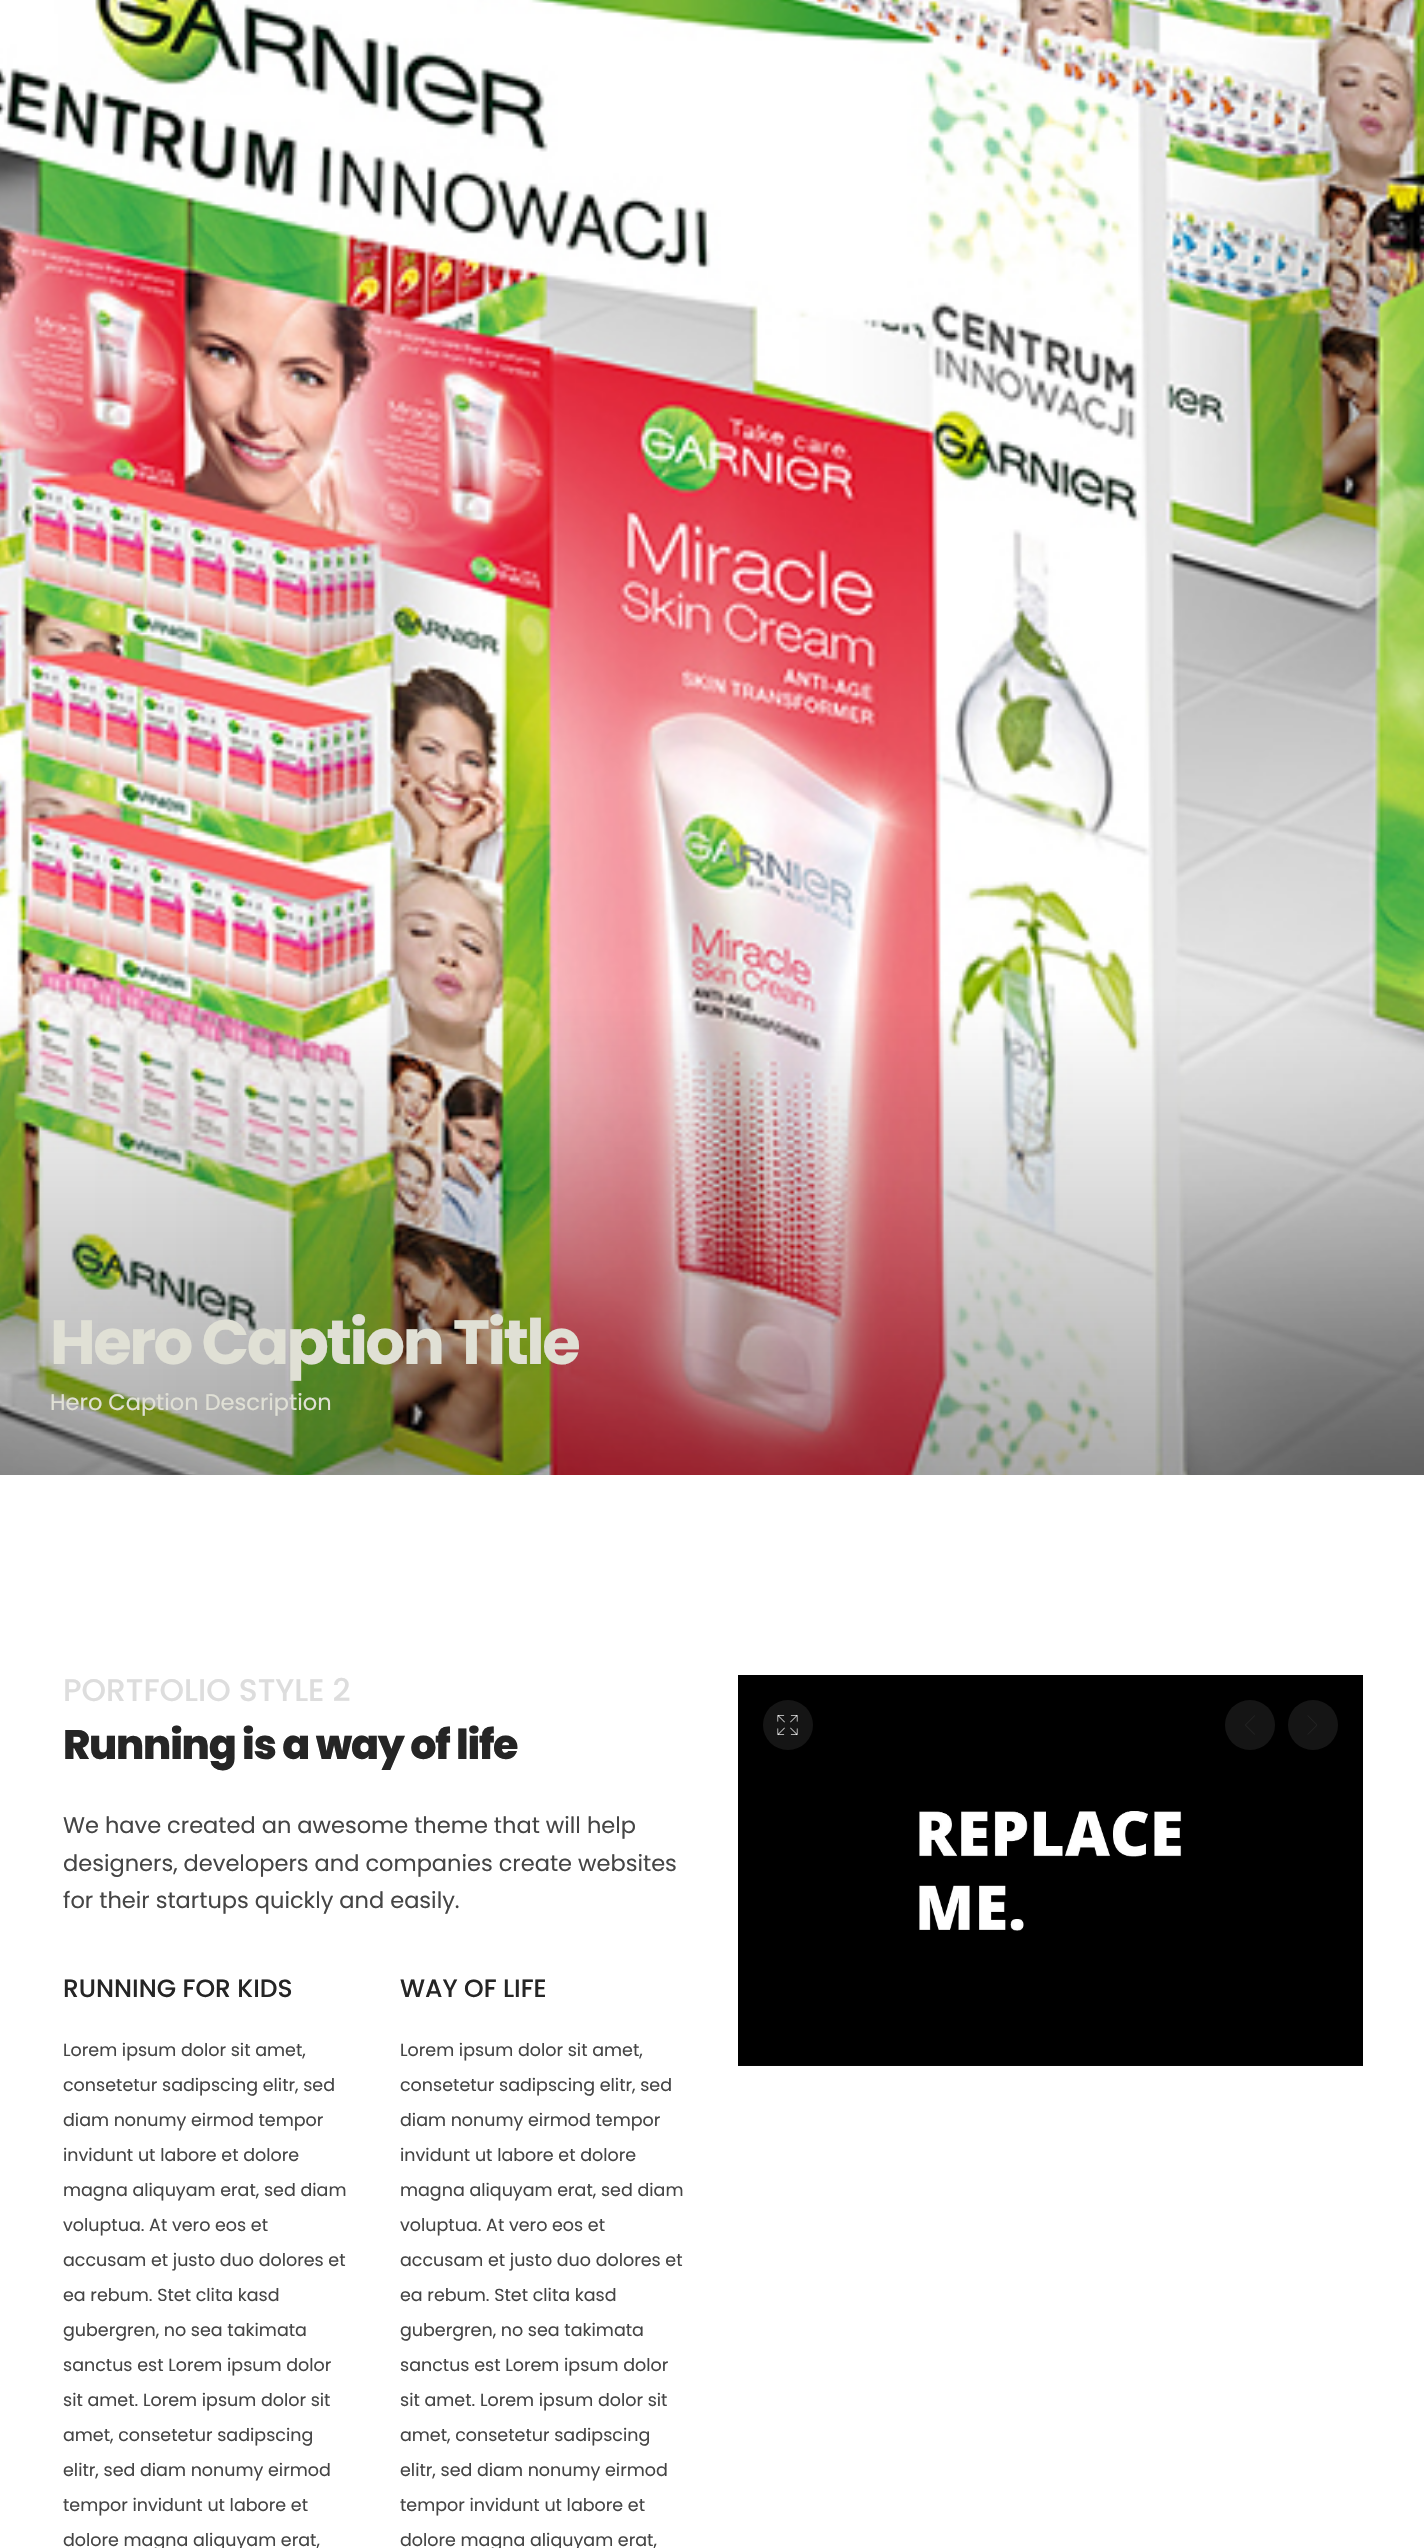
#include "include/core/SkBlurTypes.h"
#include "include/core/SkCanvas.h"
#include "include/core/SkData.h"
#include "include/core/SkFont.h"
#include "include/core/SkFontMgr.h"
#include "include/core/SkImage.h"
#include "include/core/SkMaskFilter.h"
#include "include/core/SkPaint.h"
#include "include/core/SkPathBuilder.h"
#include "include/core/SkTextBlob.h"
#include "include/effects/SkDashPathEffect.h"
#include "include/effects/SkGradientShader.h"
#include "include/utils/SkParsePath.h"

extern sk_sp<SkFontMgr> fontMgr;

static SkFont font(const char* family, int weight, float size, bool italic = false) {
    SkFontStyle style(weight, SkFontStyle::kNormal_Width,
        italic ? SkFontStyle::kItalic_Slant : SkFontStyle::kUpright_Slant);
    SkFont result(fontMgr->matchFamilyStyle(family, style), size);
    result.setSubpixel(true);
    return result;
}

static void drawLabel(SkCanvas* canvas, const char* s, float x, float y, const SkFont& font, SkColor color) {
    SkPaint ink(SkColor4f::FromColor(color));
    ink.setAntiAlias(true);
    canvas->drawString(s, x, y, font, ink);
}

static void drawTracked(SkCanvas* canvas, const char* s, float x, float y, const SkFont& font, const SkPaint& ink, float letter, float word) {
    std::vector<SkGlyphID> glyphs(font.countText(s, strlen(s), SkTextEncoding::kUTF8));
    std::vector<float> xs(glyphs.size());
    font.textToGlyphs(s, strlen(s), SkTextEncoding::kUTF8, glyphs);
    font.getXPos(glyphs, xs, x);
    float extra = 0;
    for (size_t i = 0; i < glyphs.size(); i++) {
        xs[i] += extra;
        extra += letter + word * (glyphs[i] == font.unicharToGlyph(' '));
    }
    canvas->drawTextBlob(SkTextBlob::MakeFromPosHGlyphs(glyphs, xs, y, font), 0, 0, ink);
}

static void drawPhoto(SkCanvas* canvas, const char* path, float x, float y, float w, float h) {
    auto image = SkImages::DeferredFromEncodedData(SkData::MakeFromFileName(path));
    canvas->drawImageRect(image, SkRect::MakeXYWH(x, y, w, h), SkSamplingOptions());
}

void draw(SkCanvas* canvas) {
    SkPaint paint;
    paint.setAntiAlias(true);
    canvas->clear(0xFFFFFFFF);
    drawPhoto(canvas, "assets/img1.png", 0, 0, 1424, 1475);
    SkFont font1 = font("Poppins", 700, 62.5f);
    paint.setColor(0xFFE0E0D5);
    drawTracked(canvas, "Hero Caption Title", 50, 1364, font1, paint, -2.5f, 0);
    SkFont font2 = font("Poppins", 400, 22.5f);
    drawLabel(canvas, "Hero Caption Description", 50, 1410, font2, 0xFFE0E0D5);
    SkFont font3 = font("Poppins", 500, 31.25f);
    drawLabel(canvas, "PORTFOLIO STYLE 2", 63, 1701, font3, 0xFFDDDDDD);
    SkFont font4 = font("Poppins", 800, 41.25f);
    paint.setColor(0xFF252525);
    drawTracked(canvas, "Running is a way of life", 63, 1759, font4, paint, -1.25f, 0);
    drawLabel(canvas, "We have created an awesome theme that will help", 63, 1833, font2, 0xFF454545);
    drawLabel(canvas, "designers, developers and companies create websites", 63, 1871, font2, 0xFF454545);
    drawLabel(canvas, "for their startups quickly and easily.", 63, 1908, font2, 0xFF454545);
    SkFont font5 = font("Poppins", 500, 25);
    drawLabel(canvas, "RUNNING FOR KIDS", 63, 1997, font5, 0xFF252525);
    SkFont font6 = font("Poppins", 400, 17.5f);
    drawLabel(canvas, "Lorem ipsum dolor sit amet,", 63, 2056, font6, 0xFF454545);
    drawLabel(canvas, "consetetur sadipscing elitr, sed", 63, 2091, font6, 0xFF454545);
    drawLabel(canvas, "diam nonumy eirmod tempor", 63, 2126, font6, 0xFF454545);
    drawLabel(canvas, "invidunt ut labore et dolore", 63, 2161, font6, 0xFF454545);
    drawLabel(canvas, "magna aliquyam erat, sed diam", 63, 2196, font6, 0xFF454545);
    drawLabel(canvas, "voluptua. At vero eos et", 63, 2231, font6, 0xFF454545);
    drawLabel(canvas, "accusam et justo duo dolores et", 63, 2266, font6, 0xFF454545);
    drawLabel(canvas, "ea rebum. Stet clita kasd", 63, 2301, font6, 0xFF454545);
    drawLabel(canvas, "gubergren, no sea takimata", 63, 2336, font6, 0xFF454545);
    drawLabel(canvas, "sanctus est Lorem ipsum dolor", 63, 2371, font6, 0xFF454545);
    drawLabel(canvas, "sit amet. Lorem ipsum dolor sit", 63, 2406, font6, 0xFF454545);
    drawLabel(canvas, "amet, consetetur sadipscing", 63, 2441, font6, 0xFF454545);
    drawLabel(canvas, "elitr, sed diam nonumy eirmod", 63, 2476, font6, 0xFF454545);
    drawLabel(canvas, "tempor invidunt ut labore et", 63, 2511, font6, 0xFF454545);
    drawLabel(canvas, "dolore magna aliquyam erat,", 63, 2546, font6, 0xFF454545);
    drawLabel(canvas, "WAY OF LIFE", 400, 1997, font5, 0xFF252525);
    drawLabel(canvas, "Lorem ipsum dolor sit amet,", 400, 2056, font6, 0xFF454545);
    drawLabel(canvas, "consetetur sadipscing elitr, sed", 400, 2091, font6, 0xFF454545);
    drawLabel(canvas, "diam nonumy eirmod tempor", 400, 2126, font6, 0xFF454545);
    drawLabel(canvas, "invidunt ut labore et dolore", 400, 2161, font6, 0xFF454545);
    drawLabel(canvas, "magna aliquyam erat, sed diam", 400, 2196, font6, 0xFF454545);
    drawLabel(canvas, "voluptua. At vero eos et", 400, 2231, font6, 0xFF454545);
    drawLabel(canvas, "accusam et justo duo dolores et", 400, 2266, font6, 0xFF454545);
    drawLabel(canvas, "ea rebum. Stet clita kasd", 400, 2301, font6, 0xFF454545);
    drawLabel(canvas, "gubergren, no sea takimata", 400, 2336, font6, 0xFF454545);
    drawLabel(canvas, "sanctus est Lorem ipsum dolor", 400, 2371, font6, 0xFF454545);
    drawLabel(canvas, "sit amet. Lorem ipsum dolor sit", 400, 2406, font6, 0xFF454545);
    drawLabel(canvas, "amet, consetetur sadipscing", 400, 2441, font6, 0xFF454545);
    drawLabel(canvas, "elitr, sed diam nonumy eirmod", 400, 2476, font6, 0xFF454545);
    drawLabel(canvas, "tempor invidunt ut labore et", 400, 2511, font6, 0xFF454545);
    drawLabel(canvas, "dolore magna aliquyam erat,", 400, 2546, font6, 0xFF454545);
    drawPhoto(canvas, "assets/img2.png", 738, 1675, 625, 391);
    paint.setColor(0xFF151515);
    canvas->drawCircle(788, 1725, 25, paint);
    drawPhoto(canvas, "assets/img3.png", 777, 1715, 21, 20);
    canvas->drawCircle(1250, 1725, 25, paint);
    drawPhoto(canvas, "assets/img4.png", 1245, 1715, 10, 20);
    canvas->drawCircle(1313, 1725, 25, paint);
    drawPhoto(canvas, "assets/img5.png", 1307, 1715, 10, 20);
}
